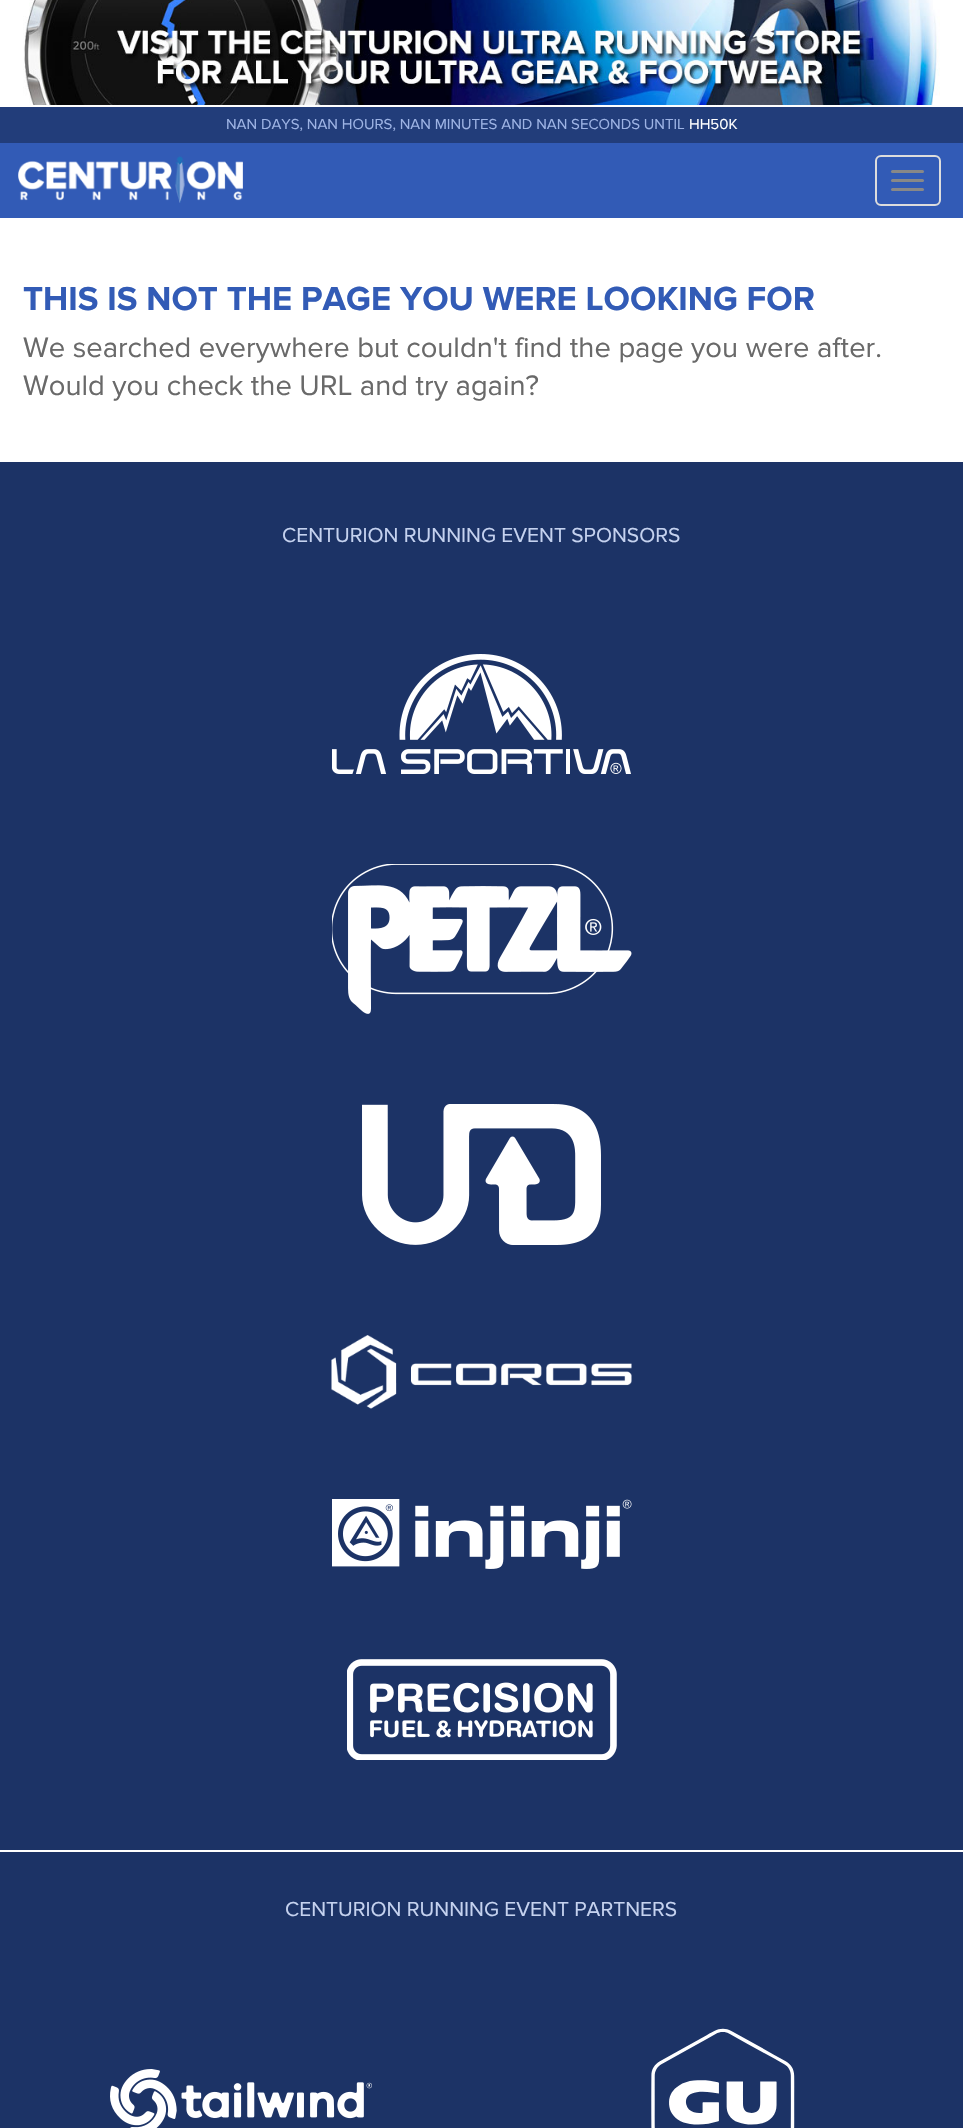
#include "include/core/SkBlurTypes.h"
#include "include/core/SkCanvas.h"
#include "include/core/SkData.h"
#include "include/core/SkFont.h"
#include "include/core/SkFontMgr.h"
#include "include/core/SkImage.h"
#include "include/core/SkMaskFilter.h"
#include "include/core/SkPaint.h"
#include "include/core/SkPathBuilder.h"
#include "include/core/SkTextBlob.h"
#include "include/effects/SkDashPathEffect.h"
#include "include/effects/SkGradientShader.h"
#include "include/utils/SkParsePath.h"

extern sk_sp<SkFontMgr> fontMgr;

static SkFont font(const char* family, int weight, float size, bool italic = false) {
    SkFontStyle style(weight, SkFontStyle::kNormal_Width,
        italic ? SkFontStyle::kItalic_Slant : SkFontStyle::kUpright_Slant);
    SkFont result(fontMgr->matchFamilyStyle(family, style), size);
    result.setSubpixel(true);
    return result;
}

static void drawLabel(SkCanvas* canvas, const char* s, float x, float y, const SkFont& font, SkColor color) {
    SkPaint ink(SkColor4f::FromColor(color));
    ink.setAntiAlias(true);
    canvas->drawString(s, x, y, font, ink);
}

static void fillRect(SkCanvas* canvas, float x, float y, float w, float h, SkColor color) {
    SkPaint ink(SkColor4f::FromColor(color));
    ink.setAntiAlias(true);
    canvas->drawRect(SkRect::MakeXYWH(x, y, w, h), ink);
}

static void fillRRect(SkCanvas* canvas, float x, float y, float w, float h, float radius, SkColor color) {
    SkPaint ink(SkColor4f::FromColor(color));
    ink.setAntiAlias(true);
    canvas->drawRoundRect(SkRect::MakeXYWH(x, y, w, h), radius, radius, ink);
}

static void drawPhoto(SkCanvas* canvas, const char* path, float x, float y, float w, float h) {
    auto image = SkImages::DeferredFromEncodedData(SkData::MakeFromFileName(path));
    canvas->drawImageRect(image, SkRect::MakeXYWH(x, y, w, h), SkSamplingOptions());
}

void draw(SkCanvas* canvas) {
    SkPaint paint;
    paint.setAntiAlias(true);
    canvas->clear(0xFFFFFFFF);
    drawPhoto(canvas, "assets/img1.png", 23, 0, 917, 105);
    fillRect(canvas, 0, 107, 963, 36, 0xFF223D7A);
    SkFont font1 = font("Proxima Nova", 400, 15);
    drawLabel(canvas, "NAN DAYS, NAN HOURS, NAN MINUTES AND NAN SECONDS UNTIL", 226, 129, font1, 0xFF9DB3E4);
    drawLabel(canvas, "HH50K", 689, 129, font1, 0xFFFFFFFF);
    fillRect(canvas, 0, 143, 963, 75, 0xFF325BB6);
    drawPhoto(canvas, "assets/img2.png", 18, 156, 225, 47);
    paint.setStroke(true);
    paint.setStrokeWidth(2);
    paint.setColor(0xFFDDDDDD);
    canvas->drawRoundRect(SkRect::MakeXYWH(876, 156, 64, 49), 5, 5, paint);
    fillRRect(canvas, 891, 170, 33, 3, 1.5f, 0xFF888888);
    fillRRect(canvas, 891, 179, 33, 3, 1.5f, 0xFF888888);
    fillRRect(canvas, 891, 188, 33, 3, 1.5f, 0xFF888888);
    SkFont font2 = font("Proxima Nova", 700, 34.5f);
    drawLabel(canvas, "THIS IS NOT THE PAGE YOU WERE LOOKING FOR", 23, 310, font2, 0xFF325BB6);
    SkFont font3 = font("Proxima Nova", 400, 29.15f);
    drawLabel(canvas, "We searched everywhere but couldn't find the page you were after.", 23, 357, font3, 0xFF696969);
    drawLabel(canvas, "Would you check the URL and try again?", 23, 395, font3, 0xFF696969);
    fillRect(canvas, 0, 462, 963, 1666, 0xFF1C3366);
    SkFont font4 = font("Proxima Nova", 400, 21);
    drawLabel(canvas, "CENTURION RUNNING EVENT SPONSORS", 282, 542, font4, 0xFFC5D2EF);
    drawPhoto(canvas, "assets/img3.png", 332, 654, 299, 120);
    drawPhoto(canvas, "assets/img4.png", 332, 864, 300, 150);
    drawPhoto(canvas, "assets/img5.png", 362, 1104, 239, 141);
    drawPhoto(canvas, "assets/img6.png", 331, 1335, 301, 74);
    drawPhoto(canvas, "assets/img7.png", 332, 1499, 300, 70);
    drawPhoto(canvas, "assets/img8.png", 347, 1659, 270, 101);
    fillRect(canvas, 0, 1850, 963, 2, 0xFFFFFFFF);
    drawLabel(canvas, "CENTURION RUNNING EVENT PARTNERS", 285, 1916, font4, 0xFFC5D2EF);
    drawPhoto(canvas, "assets/img9.png", 110, 2069, 262, 59);
    drawPhoto(canvas, "assets/img10.png", 651, 2028, 144, 100);
}
